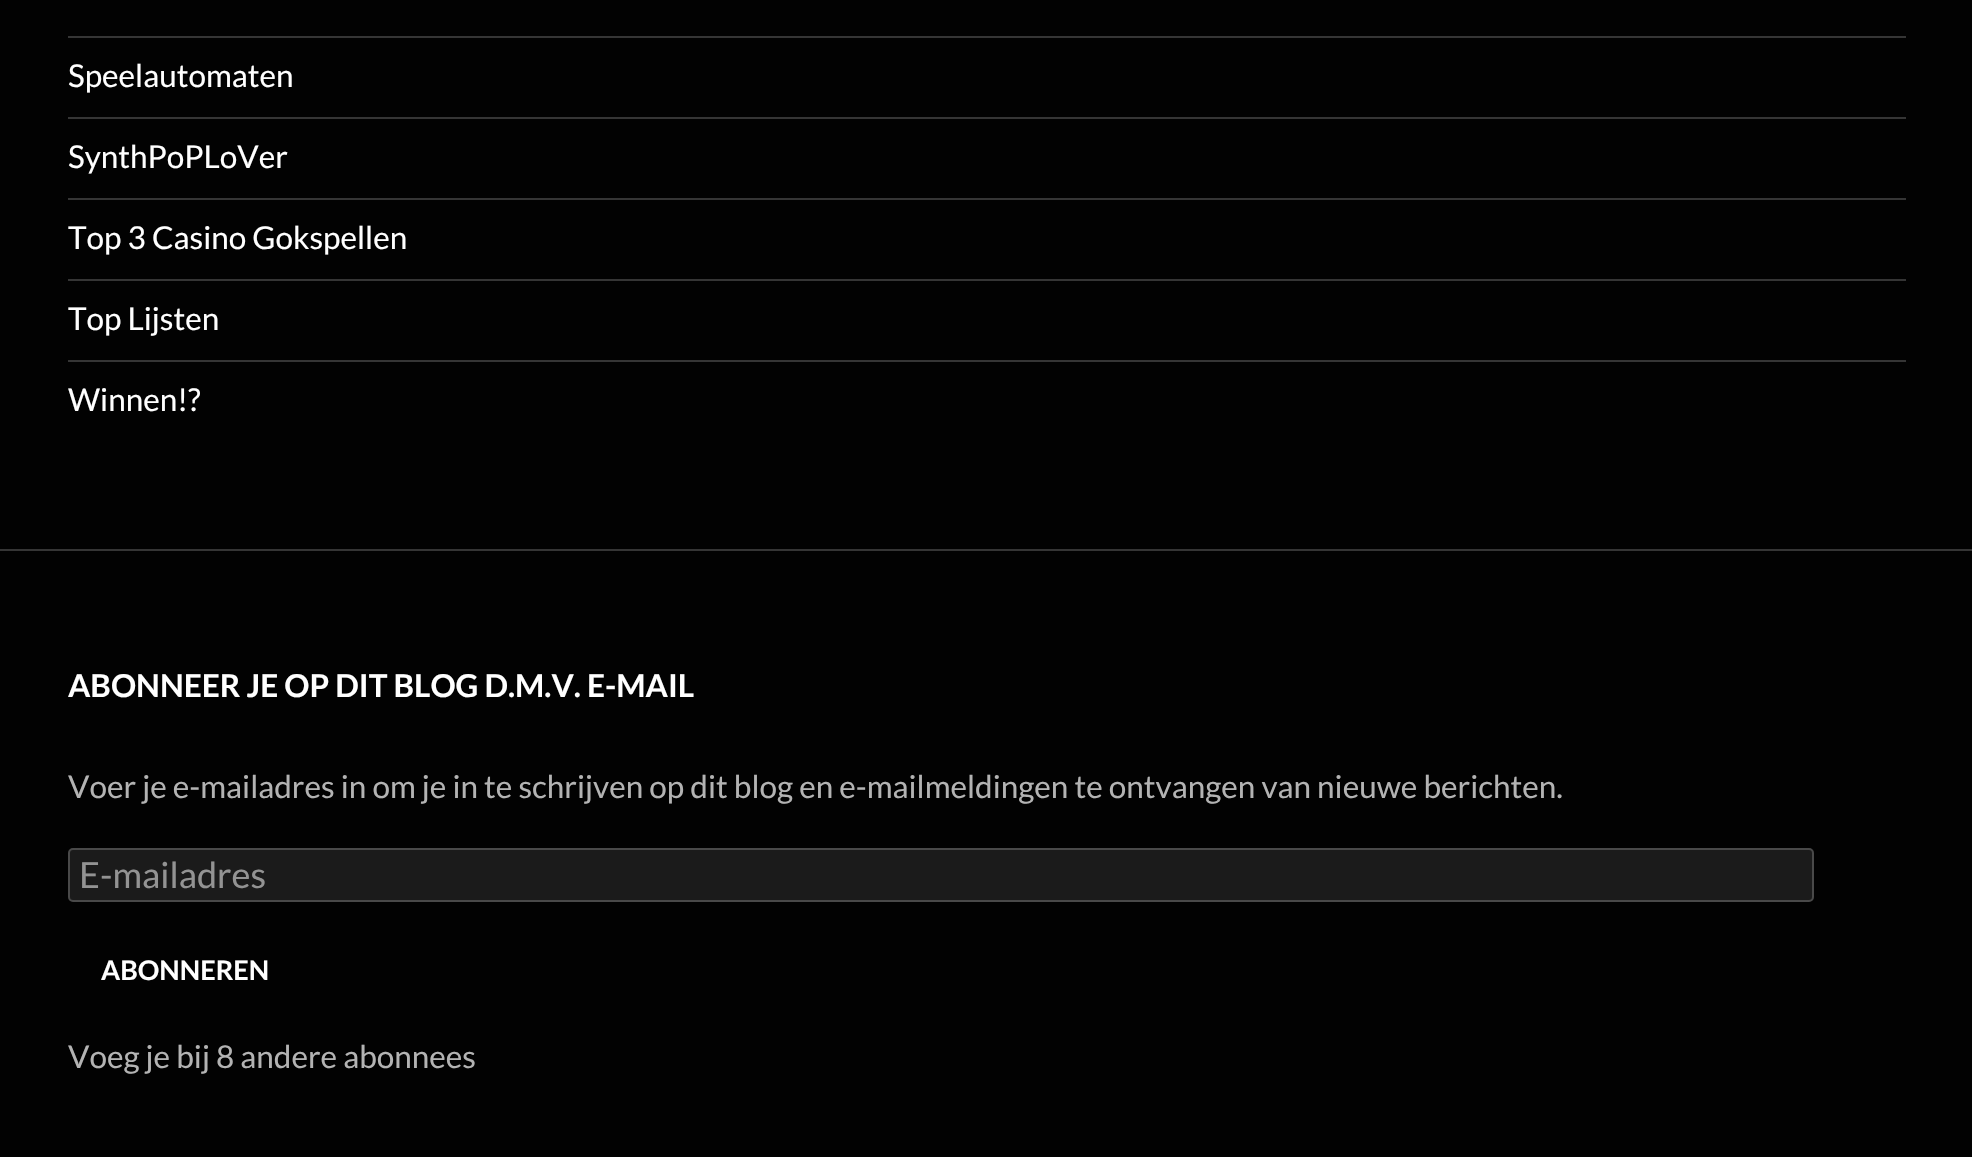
#include "include/core/SkBlurTypes.h"
#include "include/core/SkCanvas.h"
#include "include/core/SkData.h"
#include "include/core/SkFont.h"
#include "include/core/SkFontMgr.h"
#include "include/core/SkImage.h"
#include "include/core/SkMaskFilter.h"
#include "include/core/SkPaint.h"
#include "include/core/SkPathBuilder.h"
#include "include/core/SkTextBlob.h"
#include "include/effects/SkDashPathEffect.h"
#include "include/effects/SkGradientShader.h"
#include "include/utils/SkParsePath.h"

extern sk_sp<SkFontMgr> fontMgr;

static SkFont font(const char* family, int weight, float size, bool italic = false) {
    SkFontStyle style(weight, SkFontStyle::kNormal_Width,
        italic ? SkFontStyle::kItalic_Slant : SkFontStyle::kUpright_Slant);
    SkFont result(fontMgr->matchFamilyStyle(family, style), size);
    result.setSubpixel(true);
    return result;
}

static void drawLabel(SkCanvas* canvas, const char* s, float x, float y, const SkFont& font, SkColor color) {
    SkPaint ink(SkColor4f::FromColor(color));
    ink.setAntiAlias(true);
    canvas->drawString(s, x, y, font, ink);
}

static void fillRect(SkCanvas* canvas, float x, float y, float w, float h, SkColor color) {
    SkPaint ink(SkColor4f::FromColor(color));
    ink.setAntiAlias(true);
    canvas->drawRect(SkRect::MakeXYWH(x, y, w, h), ink);
}

static void fillRRect(SkCanvas* canvas, float x, float y, float w, float h, float radius, SkColor color) {
    SkPaint ink(SkColor4f::FromColor(color));
    ink.setAntiAlias(true);
    canvas->drawRoundRect(SkRect::MakeXYWH(x, y, w, h), radius, radius, ink);
}

void draw(SkCanvas* canvas) {
    SkPaint paint;
    paint.setAntiAlias(true);
    canvas->clear(0xFF020202);
    fillRect(canvas, 0, 549, 1972, 2, 0xFF353535);
    fillRect(canvas, 68, 36, 1838, 2, 0xFF353535);
    SkFont font1 = font("Lato", 400, 31.5f);
    drawLabel(canvas, "Speelautomaten", 68, 87, font1, 0xFFFFFFFF);
    fillRect(canvas, 68, 117, 1838, 2, 0xFF353535);
    drawLabel(canvas, "SynthPoPLoVer", 68, 168, font1, 0xFFFFFFFF);
    fillRect(canvas, 68, 198, 1838, 2, 0xFF353535);
    drawLabel(canvas, "Top 3 Casino Gokspellen", 68, 249, font1, 0xFFFFFFFF);
    fillRect(canvas, 68, 279, 1838, 2, 0xFF353535);
    drawLabel(canvas, "Top Lijsten", 68, 330, font1, 0xFFFFFFFF);
    fillRect(canvas, 68, 360, 1838, 2, 0xFF353535);
    drawLabel(canvas, "Winnen!?", 68, 411, font1, 0xFFFFFFFF);
    SkFont font2 = font("Lato", 700, 31.5f);
    drawLabel(canvas, "ABONNEER JE OP DIT BLOG D.M.V. E-MAIL", 68, 697, font2, 0xFFFFFFFF);
    drawLabel(canvas, "Voer je e-mailadres in om je in te schrijven op dit blog en e-mailmeldingen te ontvangen van nieuwe berichten.", 68, 798, font1, 0xFFB3B3B3);
    fillRRect(canvas, 68, 848, 1746, 54, 5, 0xFF1B1B1B);
    paint.setStroke(true);
    paint.setStrokeWidth(2);
    paint.setColor(0x33FFFFFF);
    canvas->drawRoundRect(SkRect::MakeXYWH(69, 849, 1744, 52), 4, 4, paint);
    SkFont font3 = font("Lato", 400, 36);
    drawLabel(canvas, "E-mailadres", 79, 888, font3, 0xFF939393);
    SkFont font4 = font("Lato", 700, 27);
    drawLabel(canvas, "ABONNEREN", 101, 980, font4, 0xFFFFFFFF);
    drawLabel(canvas, "Voeg je bij 8 andere abonnees", 68, 1068, font1, 0xFFB3B3B3);
}
